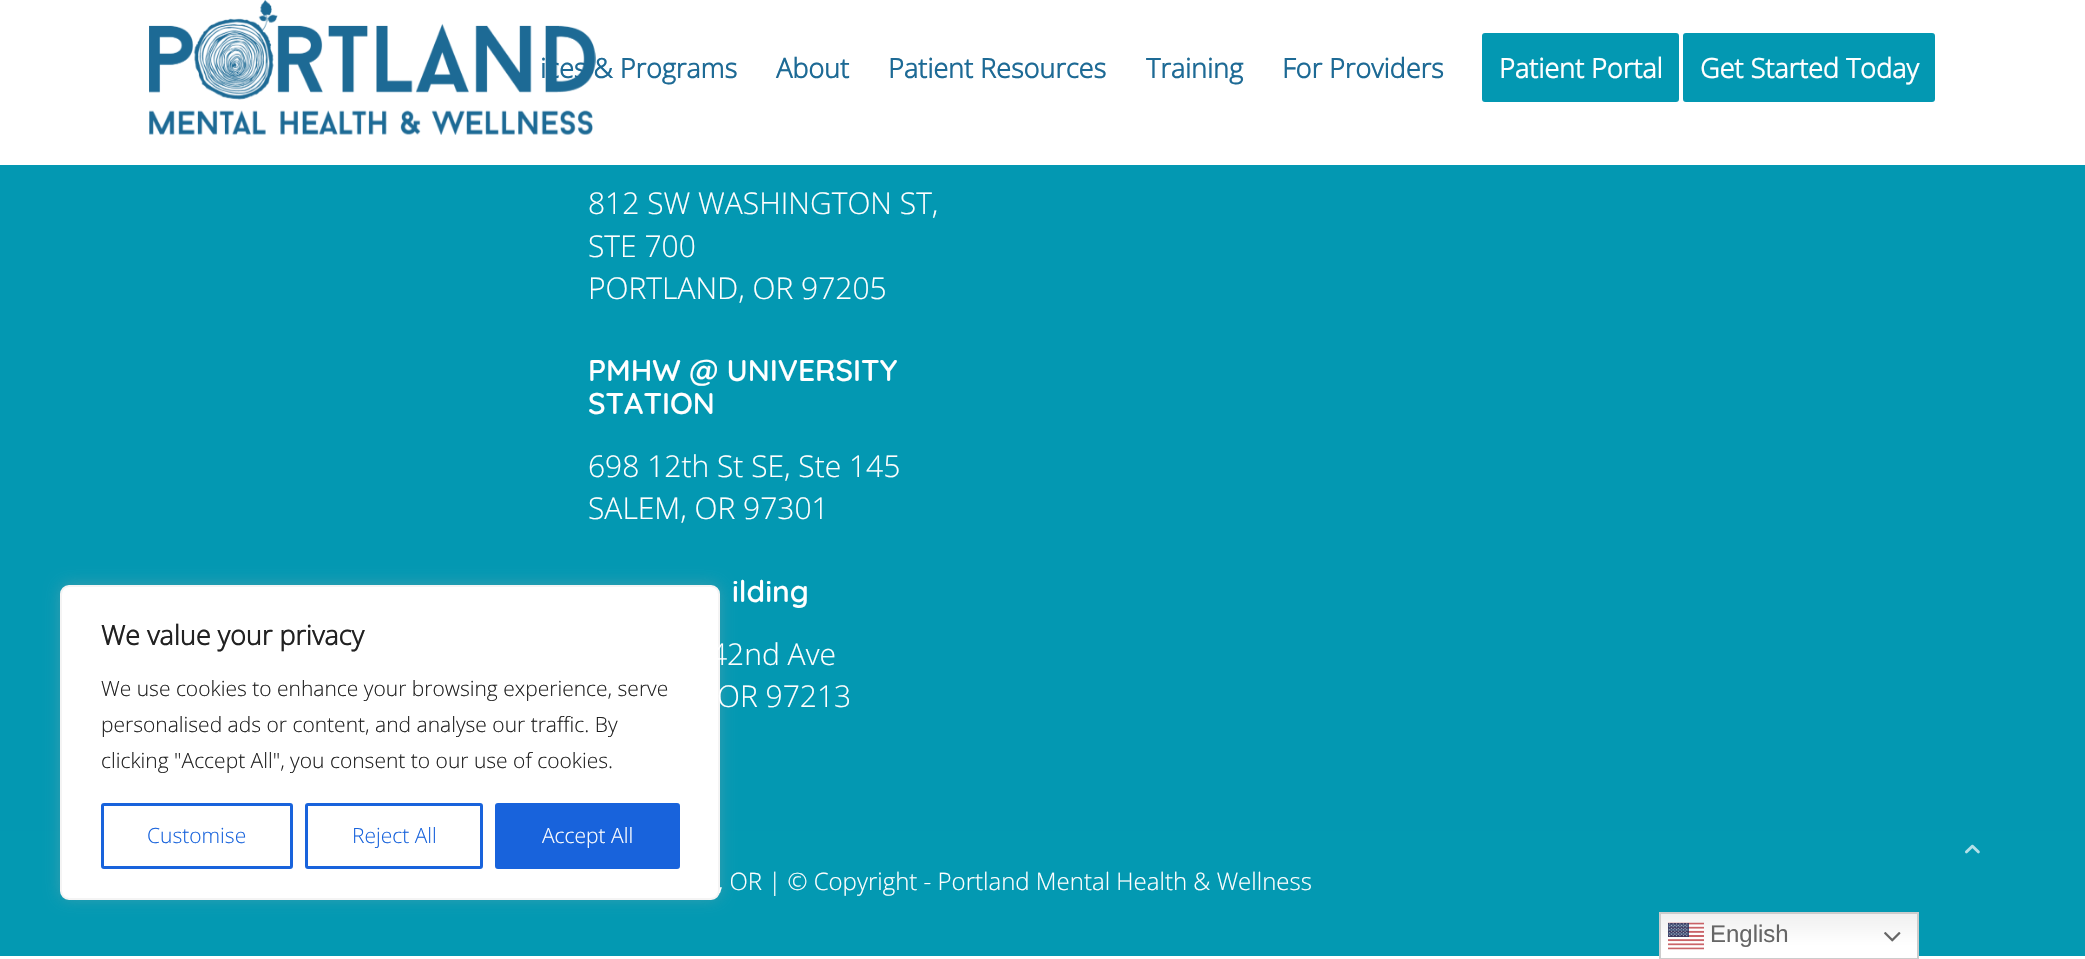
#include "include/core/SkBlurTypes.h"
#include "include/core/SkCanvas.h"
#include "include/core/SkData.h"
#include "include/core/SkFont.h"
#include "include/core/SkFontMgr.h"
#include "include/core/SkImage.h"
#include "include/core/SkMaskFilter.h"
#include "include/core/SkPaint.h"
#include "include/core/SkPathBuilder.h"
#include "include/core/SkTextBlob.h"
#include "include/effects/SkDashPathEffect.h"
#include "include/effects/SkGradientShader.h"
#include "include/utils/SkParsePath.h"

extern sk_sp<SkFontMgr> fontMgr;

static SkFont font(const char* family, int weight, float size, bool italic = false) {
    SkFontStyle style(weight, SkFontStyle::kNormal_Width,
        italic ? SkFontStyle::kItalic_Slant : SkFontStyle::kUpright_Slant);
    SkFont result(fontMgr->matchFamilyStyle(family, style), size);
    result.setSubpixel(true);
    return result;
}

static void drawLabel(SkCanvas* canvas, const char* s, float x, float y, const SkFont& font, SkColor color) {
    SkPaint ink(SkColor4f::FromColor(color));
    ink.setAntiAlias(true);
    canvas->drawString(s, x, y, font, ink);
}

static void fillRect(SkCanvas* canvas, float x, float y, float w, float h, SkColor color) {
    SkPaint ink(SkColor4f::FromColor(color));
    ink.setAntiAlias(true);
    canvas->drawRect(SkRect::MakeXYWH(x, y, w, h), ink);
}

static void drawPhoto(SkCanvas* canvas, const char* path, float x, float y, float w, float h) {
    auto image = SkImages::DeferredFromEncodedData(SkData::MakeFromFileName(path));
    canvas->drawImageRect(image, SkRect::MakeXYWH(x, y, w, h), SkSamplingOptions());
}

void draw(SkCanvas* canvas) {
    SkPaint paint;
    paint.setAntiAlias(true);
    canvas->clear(0xFFFFFFFF);
    fillRect(canvas, 0, 165, 2085, 666, 0xFF0398B2);
    fillRect(canvas, 0, 831, 2085, 125, 0xFF0399B2);
    paint.setColor(0x4DACABAB);
    paint.setMaskFilter(SkMaskFilter::MakeBlur(kNormal_SkBlurStyle, 7.5f));
    canvas->drawRoundRect(SkRect::MakeXYWH(60, 584, 660, 315), 9, 9, paint);
    paint.setMaskFilter(nullptr);
    paint.setColor(0xFFFFFFFF);
    canvas->drawRoundRect(SkRect::MakeXYWH(61, 586, 658, 313), 8, 8, paint);
    paint.setStroke(true);
    paint.setStrokeWidth(2);
    paint.setColor(0xFFF4F4F4);
    canvas->drawRoundRect(SkRect::MakeXYWH(61, 586, 658, 313), 8, 8, paint);
    SkFont font1 = font("Open Sans", 700, 27);
    drawLabel(canvas, "We value your privacy", 101, 645, font1, 0xFF212121);
    SkFont font2 = font("Open Sans", 300, 21);
    drawLabel(canvas, "We use cookies to enhance your browsing experience, serve", 101, 696, font2, 0xFF212121);
    drawLabel(canvas, "personalised ads or content, and analyse our traffic. By", 101, 732, font2, 0xFF212121);
    drawLabel(canvas, "clicking \"Accept All\", you consent to our use of cookies.", 101, 768, font2, 0xFF212121);
    paint.setStrokeWidth(3);
    paint.setColor(0xFF1863DC);
    canvas->drawRoundRect(SkRect::MakeXYWH(102.5f, 804.5f, 189, 63), 1.5f, 1.5f, paint);
    drawLabel(canvas, "Customise", 147, 843, font2, 0xFF1863DC);
    canvas->drawRoundRect(SkRect::MakeXYWH(306.5f, 804.5f, 175, 63), 1.5f, 1.5f, paint);
    drawLabel(canvas, "Reject All", 352, 843, font2, 0xFF1863DC);
    paint.setStroke(false);
    canvas->drawRoundRect(SkRect::MakeXYWH(496.5f, 804.5f, 182, 63), 1.5f, 1.5f, paint);
    paint.setStroke(true);
    canvas->drawRoundRect(SkRect::MakeXYWH(496.5f, 804.5f, 182, 63), 1.5f, 1.5f, paint);
    drawLabel(canvas, "Accept All", 542, 843, font2, 0xFFFFFFFF);
    drawPhoto(canvas, "assets/img1.png", 149, 0, 447, 135);
    drawLabel(canvas, "ices & Programs", 540, 78, font1, 0xFF1D6A95);
    drawLabel(canvas, "About", 776, 78, font1, 0xFF1D6A95);
    drawLabel(canvas, "Patient Resources", 888, 78, font1, 0xFF1D6A95);
    drawLabel(canvas, "Training", 1146, 78, font1, 0xFF1D6A95);
    drawLabel(canvas, "For Providers", 1282, 78, font1, 0xFF1D6A95);
    paint.setStroke(false);
    paint.setColor(0xFF0398B2);
    canvas->drawRoundRect(SkRect::MakeXYWH(1483.5f, 34.5f, 194, 66), 1.5f, 1.5f, paint);
    paint.setStroke(true);
    canvas->drawRoundRect(SkRect::MakeXYWH(1483.5f, 34.5f, 194, 66), 1.5f, 1.5f, paint);
    drawLabel(canvas, "Patient Portal", 1499, 78, font1, 0xFFFFFFFF);
    paint.setStroke(false);
    canvas->drawRoundRect(SkRect::MakeXYWH(1684.5f, 34.5f, 249, 66), 1.5f, 1.5f, paint);
    paint.setStroke(true);
    canvas->drawRoundRect(SkRect::MakeXYWH(1684.5f, 34.5f, 249, 66), 1.5f, 1.5f, paint);
    drawLabel(canvas, "Get Started Today", 1700, 78, font1, 0xFFFFFFFF);
    SkFont font3 = font("Open Sans", 300, 30);
    drawLabel(canvas, "812 SW WASHINGTON ST,", 588, 214, font3, 0xFFFFFFFF);
    drawLabel(canvas, "STE 700", 588, 257, font3, 0xFFFFFFFF);
    drawLabel(canvas, "PORTLAND, OR 97205", 588, 299, font3, 0xFFFFFFFF);
    SkFont font4 = font("Quicksand", 600, 30);
    drawLabel(canvas, "PMHW @ UNIVERSITY", 588, 381, font4, 0xFFFFFFFF);
    drawLabel(canvas, "STATION", 588, 414, font4, 0xFFFFFFFF);
    drawLabel(canvas, "698 12th St SE, Ste 145", 588, 477, font3, 0xFFFFFFFF);
    drawLabel(canvas, "SALEM, OR 97301", 588, 519, font3, 0xFFFFFFFF);
    drawLabel(canvas, "ilding", 732, 602, font4, 0xFFFFFFFF);
    drawLabel(canvas, "42nd Ave", 710, 665, font3, 0xFFFFFFFF);
    drawLabel(canvas, "OR 97213", 717, 707, font3, 0xFFFFFFFF);
    SkFont font5 = font("Open Sans", 300, 24);
    drawLabel(canvas, ", OR | © Copyright - Portland Mental Health & Wellness", 718, 890, font5, 0xFFFFFFFF);
    drawPhoto(canvas, "assets/img2.png", 1965, 844, 15, 10);
    paint.setStroke(false);
    {
        const SkColor colors[] = {0xFFEFEFEF, 0xFFFFFFFF};
        const float stops[] = {0, 0.7f};
        const SkPoint ends[] = {{1789, 912}, {1789, 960}};
        paint.setShader(SkGradientShader::MakeLinear(ends, colors, stops, 2, SkTileMode::kClamp));
        paint.setAlpha(255);
    }
    canvas->drawRect(SkRect::MakeXYWH(1661, 914, 256, 42), paint);
    paint.setStroke(true);
    paint.setStrokeWidth(2);
    paint.setShader(nullptr);
    paint.setColor(0xFFCCCCCC);
    canvas->drawRect(SkRect::MakeXYWH(1660, 913, 258, 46), paint);
    drawPhoto(canvas, "assets/img3.png", 1668, 922, 36, 28);
    SkFont font6 = font("Liberation Sans", 400, 24);
    drawLabel(canvas, "English", 1710, 942, font6, 0xFF666666);
    drawPhoto(canvas, "assets/img4.png", 1884, 932, 17, 10);
}
